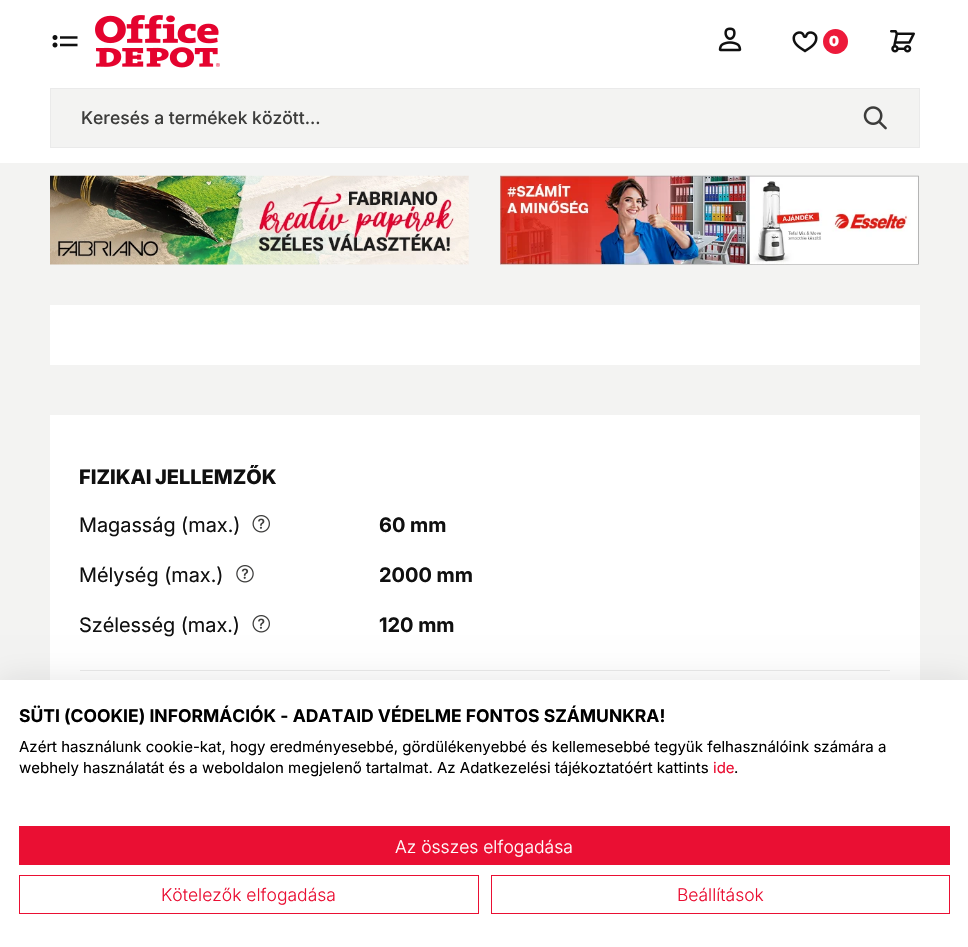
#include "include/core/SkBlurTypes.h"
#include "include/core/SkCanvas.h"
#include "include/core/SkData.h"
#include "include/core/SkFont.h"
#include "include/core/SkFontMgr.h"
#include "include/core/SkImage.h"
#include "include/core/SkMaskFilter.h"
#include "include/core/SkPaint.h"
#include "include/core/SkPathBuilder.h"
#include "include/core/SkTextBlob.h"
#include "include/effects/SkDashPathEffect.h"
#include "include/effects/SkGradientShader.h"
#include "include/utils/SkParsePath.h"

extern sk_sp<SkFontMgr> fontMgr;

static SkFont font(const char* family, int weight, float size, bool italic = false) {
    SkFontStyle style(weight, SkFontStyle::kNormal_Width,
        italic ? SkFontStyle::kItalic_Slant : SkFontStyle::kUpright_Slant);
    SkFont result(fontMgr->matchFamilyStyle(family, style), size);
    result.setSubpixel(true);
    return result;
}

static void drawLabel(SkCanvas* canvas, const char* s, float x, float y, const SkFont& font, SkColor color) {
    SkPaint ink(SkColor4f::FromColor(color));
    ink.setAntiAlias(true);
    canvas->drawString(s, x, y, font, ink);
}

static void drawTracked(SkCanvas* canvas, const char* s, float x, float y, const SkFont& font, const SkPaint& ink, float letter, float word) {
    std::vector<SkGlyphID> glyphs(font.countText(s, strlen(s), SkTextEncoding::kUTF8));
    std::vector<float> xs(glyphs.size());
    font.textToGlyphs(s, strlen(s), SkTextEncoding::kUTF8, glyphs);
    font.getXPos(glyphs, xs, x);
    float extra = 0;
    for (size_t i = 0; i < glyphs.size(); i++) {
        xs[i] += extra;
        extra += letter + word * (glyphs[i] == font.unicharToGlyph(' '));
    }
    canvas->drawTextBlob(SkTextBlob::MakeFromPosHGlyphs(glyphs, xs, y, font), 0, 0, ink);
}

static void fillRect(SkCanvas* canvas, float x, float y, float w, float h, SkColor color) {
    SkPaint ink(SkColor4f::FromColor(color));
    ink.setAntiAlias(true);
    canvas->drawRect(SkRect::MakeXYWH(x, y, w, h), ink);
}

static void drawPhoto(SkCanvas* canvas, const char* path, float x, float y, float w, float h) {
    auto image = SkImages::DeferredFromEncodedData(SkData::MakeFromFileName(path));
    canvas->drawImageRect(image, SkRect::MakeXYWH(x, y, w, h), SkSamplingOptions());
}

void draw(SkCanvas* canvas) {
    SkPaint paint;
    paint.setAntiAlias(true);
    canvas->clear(0xFFF3F3F2);
    fillRect(canvas, 0, 0, 968, 163, 0xFFFFFFFF);
    drawPhoto(canvas, "assets/img1.png", 52, 35, 26, 13);
    drawPhoto(canvas, "assets/img2.png", 95, 15, 125, 53);
    drawPhoto(canvas, "assets/img3.png", 718, 27, 24, 25);
    drawPhoto(canvas, "assets/img4.png", 792, 31, 26, 22);
    paint.setColor(0xFFED1A3B);
    canvas->drawCircle(835.5f, 41.5f, 12.5f, paint);
    SkFont font1 = font("Inter", 900, 14);
    drawLabel(canvas, "0", 829, 46, font1, 0xFFFFFFFF);
    drawPhoto(canvas, "assets/img5.png", 890, 30, 25, 23);
    paint.setColor(0xFFF3F3F2);
    canvas->drawRect(SkRect::MakeXYWH(50.5f, 88.5f, 869, 59), paint);
    paint.setStroke(true);
    paint.setStrokeWidth(1);
    paint.setColor(0xFFEAEAEA);
    canvas->drawRect(SkRect::MakeXYWH(50.5f, 88.5f, 869, 59), paint);
    SkFont font2 = font("Inter", 500, 17.5f);
    drawLabel(canvas, "Keresés a termékek között...", 81, 124, font2, 0xFF3C3C3B);
    drawPhoto(canvas, "assets/img6.png", 863, 106, 24, 24);
    drawPhoto(canvas, "assets/img7.png", 50, 175, 419, 90);
    drawPhoto(canvas, "assets/img8.png", 500, 175, 419, 90);
    fillRect(canvas, 50, 305, 870, 60, 0xFFFFFFFF);
    fillRect(canvas, 50, 415, 870, 265, 0xFFFFFFFF);
    fillRect(canvas, 80, 670, 810, 1, 0xFFEAEAEA);
    SkFont font3 = font("Inter", 800, 20);
    paint.setStroke(false);
    paint.setColor(0xFF101010);
    drawTracked(canvas, "FIZIKAI JELLEMZŐK", 79, 484, font3, paint, 0, -1);
    SkFont font4 = font("Inter", 400, 20);
    drawLabel(canvas, "Magasság (max.)", 79, 532, font4, 0xFF101010);
    drawPhoto(canvas, "assets/img9.png", 252, 515, 18, 18);
    SkFont font5 = font("Inter", 700, 20);
    drawLabel(canvas, "60 mm", 379, 532, font5, 0xFF101010);
    drawLabel(canvas, "Mélység (max.)", 79, 582, font4, 0xFF101010);
    drawPhoto(canvas, "assets/img10.png", 236, 565, 18, 18);
    drawLabel(canvas, "2000 mm", 379, 582, font5, 0xFF101010);
    drawLabel(canvas, "Szélesség (max.)", 79, 632, font4, 0xFF101010);
    drawPhoto(canvas, "assets/img9.png", 252, 615, 18, 18);
    drawLabel(canvas, "120 mm", 379, 632, font5, 0xFF101010);
    paint.setColor(0x1A000000);
    paint.setMaskFilter(SkMaskFilter::MakeBlur(kNormal_SkBlurStyle, 15));
    canvas->drawRect(SkRect::MakeXYWH(0, 680, 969, 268), paint);
    paint.setMaskFilter(nullptr);
    fillRect(canvas, 0, 680, 968, 267, 0xFFFFFFFF);
    SkFont font6 = font("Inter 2", 700, 17.5f);
    drawLabel(canvas, "SÜTI (COOKIE) INFORMÁCIÓK - ADATAID VÉDELME FONTOS SZÁMUNKRA!", 19, 722, font6, 0xFF000000);
    SkFont font7 = font("Inter 2", 400, 15);
    drawLabel(canvas, "Azért használunk cookie-kat, hogy eredményesebbé, gördülékenyebbé és kellemesebbé tegyük felhasználóink számára a", 19, 752, font7, 0xFF000000);
    drawLabel(canvas, "webhely használatát és a weboldalon megjelenő tartalmat. Az Adatkezelési tájékoztatóért kattints", 19, 773, font7, 0xFF000000);
    drawLabel(canvas, "ide", 713, 773, font7, 0xFFEA0F33);
    drawLabel(canvas, ".", 734, 773, font7, 0xFF000000);
    fillRect(canvas, 19, 826, 931, 39, 0xFFEA0F33);
    SkFont font8 = font("Inter", 300, 17.5f);
    drawLabel(canvas, "Az összes elfogadása", 395, 853, font8, 0xFFFFFFFF);
    paint.setStroke(true);
    paint.setColor(0xFFEA0F33);
    canvas->drawRect(SkRect::MakeXYWH(19.5f, 875.5f, 459, 38), paint);
    drawLabel(canvas, "Kötelezők elfogadása", 161, 901, font8, 0xFFEA0F33);
    canvas->drawRect(SkRect::MakeXYWH(491.5f, 875.5f, 458, 38), paint);
    drawLabel(canvas, "Beállítások", 677, 901, font8, 0xFFEA0F33);
}
